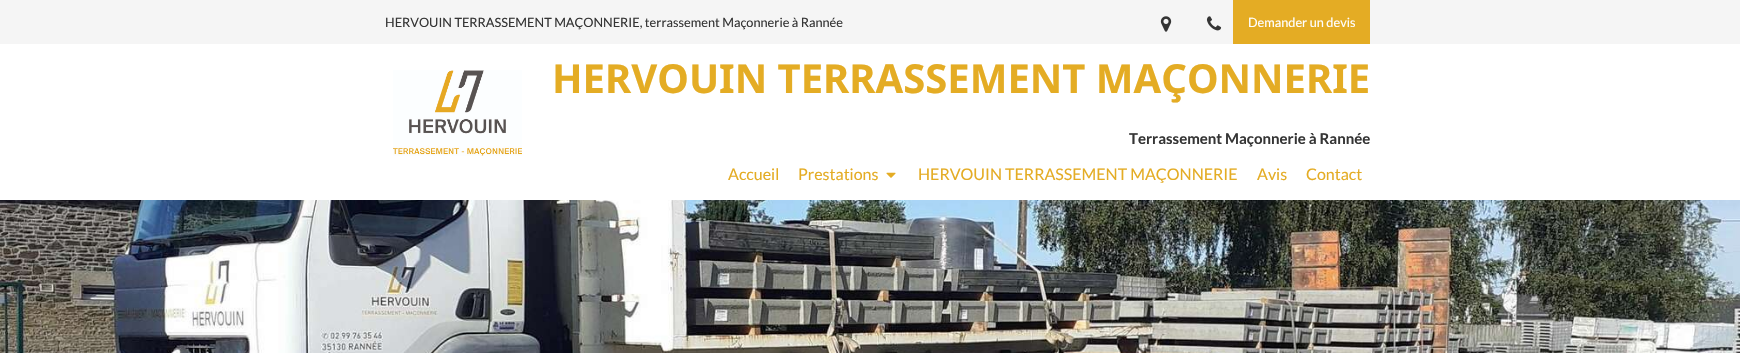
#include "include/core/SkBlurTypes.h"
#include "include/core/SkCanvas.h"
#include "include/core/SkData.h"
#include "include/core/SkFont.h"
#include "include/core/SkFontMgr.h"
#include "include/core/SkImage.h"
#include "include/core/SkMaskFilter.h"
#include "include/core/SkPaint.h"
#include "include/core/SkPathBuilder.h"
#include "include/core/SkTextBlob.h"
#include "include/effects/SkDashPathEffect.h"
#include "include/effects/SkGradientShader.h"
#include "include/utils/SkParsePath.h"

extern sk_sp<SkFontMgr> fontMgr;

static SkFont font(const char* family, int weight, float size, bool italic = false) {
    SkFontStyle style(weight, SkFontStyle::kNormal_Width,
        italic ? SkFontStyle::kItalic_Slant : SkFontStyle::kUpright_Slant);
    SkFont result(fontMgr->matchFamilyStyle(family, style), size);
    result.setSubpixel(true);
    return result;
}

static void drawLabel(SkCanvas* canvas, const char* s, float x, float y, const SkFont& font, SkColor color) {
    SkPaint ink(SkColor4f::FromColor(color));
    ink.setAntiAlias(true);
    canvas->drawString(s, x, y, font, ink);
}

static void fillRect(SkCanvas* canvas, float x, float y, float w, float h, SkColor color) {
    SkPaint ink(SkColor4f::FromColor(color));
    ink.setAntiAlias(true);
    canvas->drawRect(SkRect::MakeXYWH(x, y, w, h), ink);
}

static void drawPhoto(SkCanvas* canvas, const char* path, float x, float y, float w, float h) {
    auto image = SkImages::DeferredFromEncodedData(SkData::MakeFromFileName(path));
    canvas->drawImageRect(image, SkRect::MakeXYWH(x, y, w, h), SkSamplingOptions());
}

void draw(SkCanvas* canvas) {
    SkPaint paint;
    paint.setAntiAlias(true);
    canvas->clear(0xFFFFFFFF);
    fillRect(canvas, 0, 0, 1740, 44, 0xFFF5F5F5);
    SkFont font1 = font("Lato", 400, 12.75f);
    drawLabel(canvas, "HERVOUIN TERRASSEMENT MAÇONNERIE, terrassement Maçonnerie à Rannée", 385, 27, font1, 0xFF353535);
    drawPhoto(canvas, "assets/img1.png", 1160, 16, 12, 16);
    drawPhoto(canvas, "assets/img2.png", 1206, 16, 16, 15);
    fillRect(canvas, 1233, 0, 137, 44, 0xFFE4AC24);
    drawLabel(canvas, "Demander un devis", 1248, 27, font1, 0xFFFFFFFF);
    drawPhoto(canvas, "assets/img3.png", 393, 70, 129, 86);
    SkFont font2 = font("Noto Sans", 700, 40);
    drawLabel(canvas, "HERVOUIN TERRASSEMENT MAÇONNERIE", 552, 93, font2, 0xFFE4AC24);
    SkFont font3 = font("Lato", 700, 15);
    drawLabel(canvas, "Terrassement Maçonnerie à Rannée", 1129, 144, font3, 0xFF353535);
    SkFont font4 = font("Lato", 400, 16);
    drawLabel(canvas, "Accueil", 728, 180, font4, 0xFFE4AC24);
    drawLabel(canvas, "Prestations", 798, 180, font4, 0xFFE4AC24);
    drawPhoto(canvas, "assets/img4.png", 886, 172, 10, 6);
    drawLabel(canvas, "HERVOUIN TERRASSEMENT MAÇONNERIE", 918, 180, font4, 0xFFE4AC24);
    drawLabel(canvas, "Avis", 1257, 180, font4, 0xFFE4AC24);
    drawLabel(canvas, "Contact", 1306, 180, font4, 0xFFE4AC24);
    drawPhoto(canvas, "assets/img5.png", 0, 200, 1740, 153);
}
